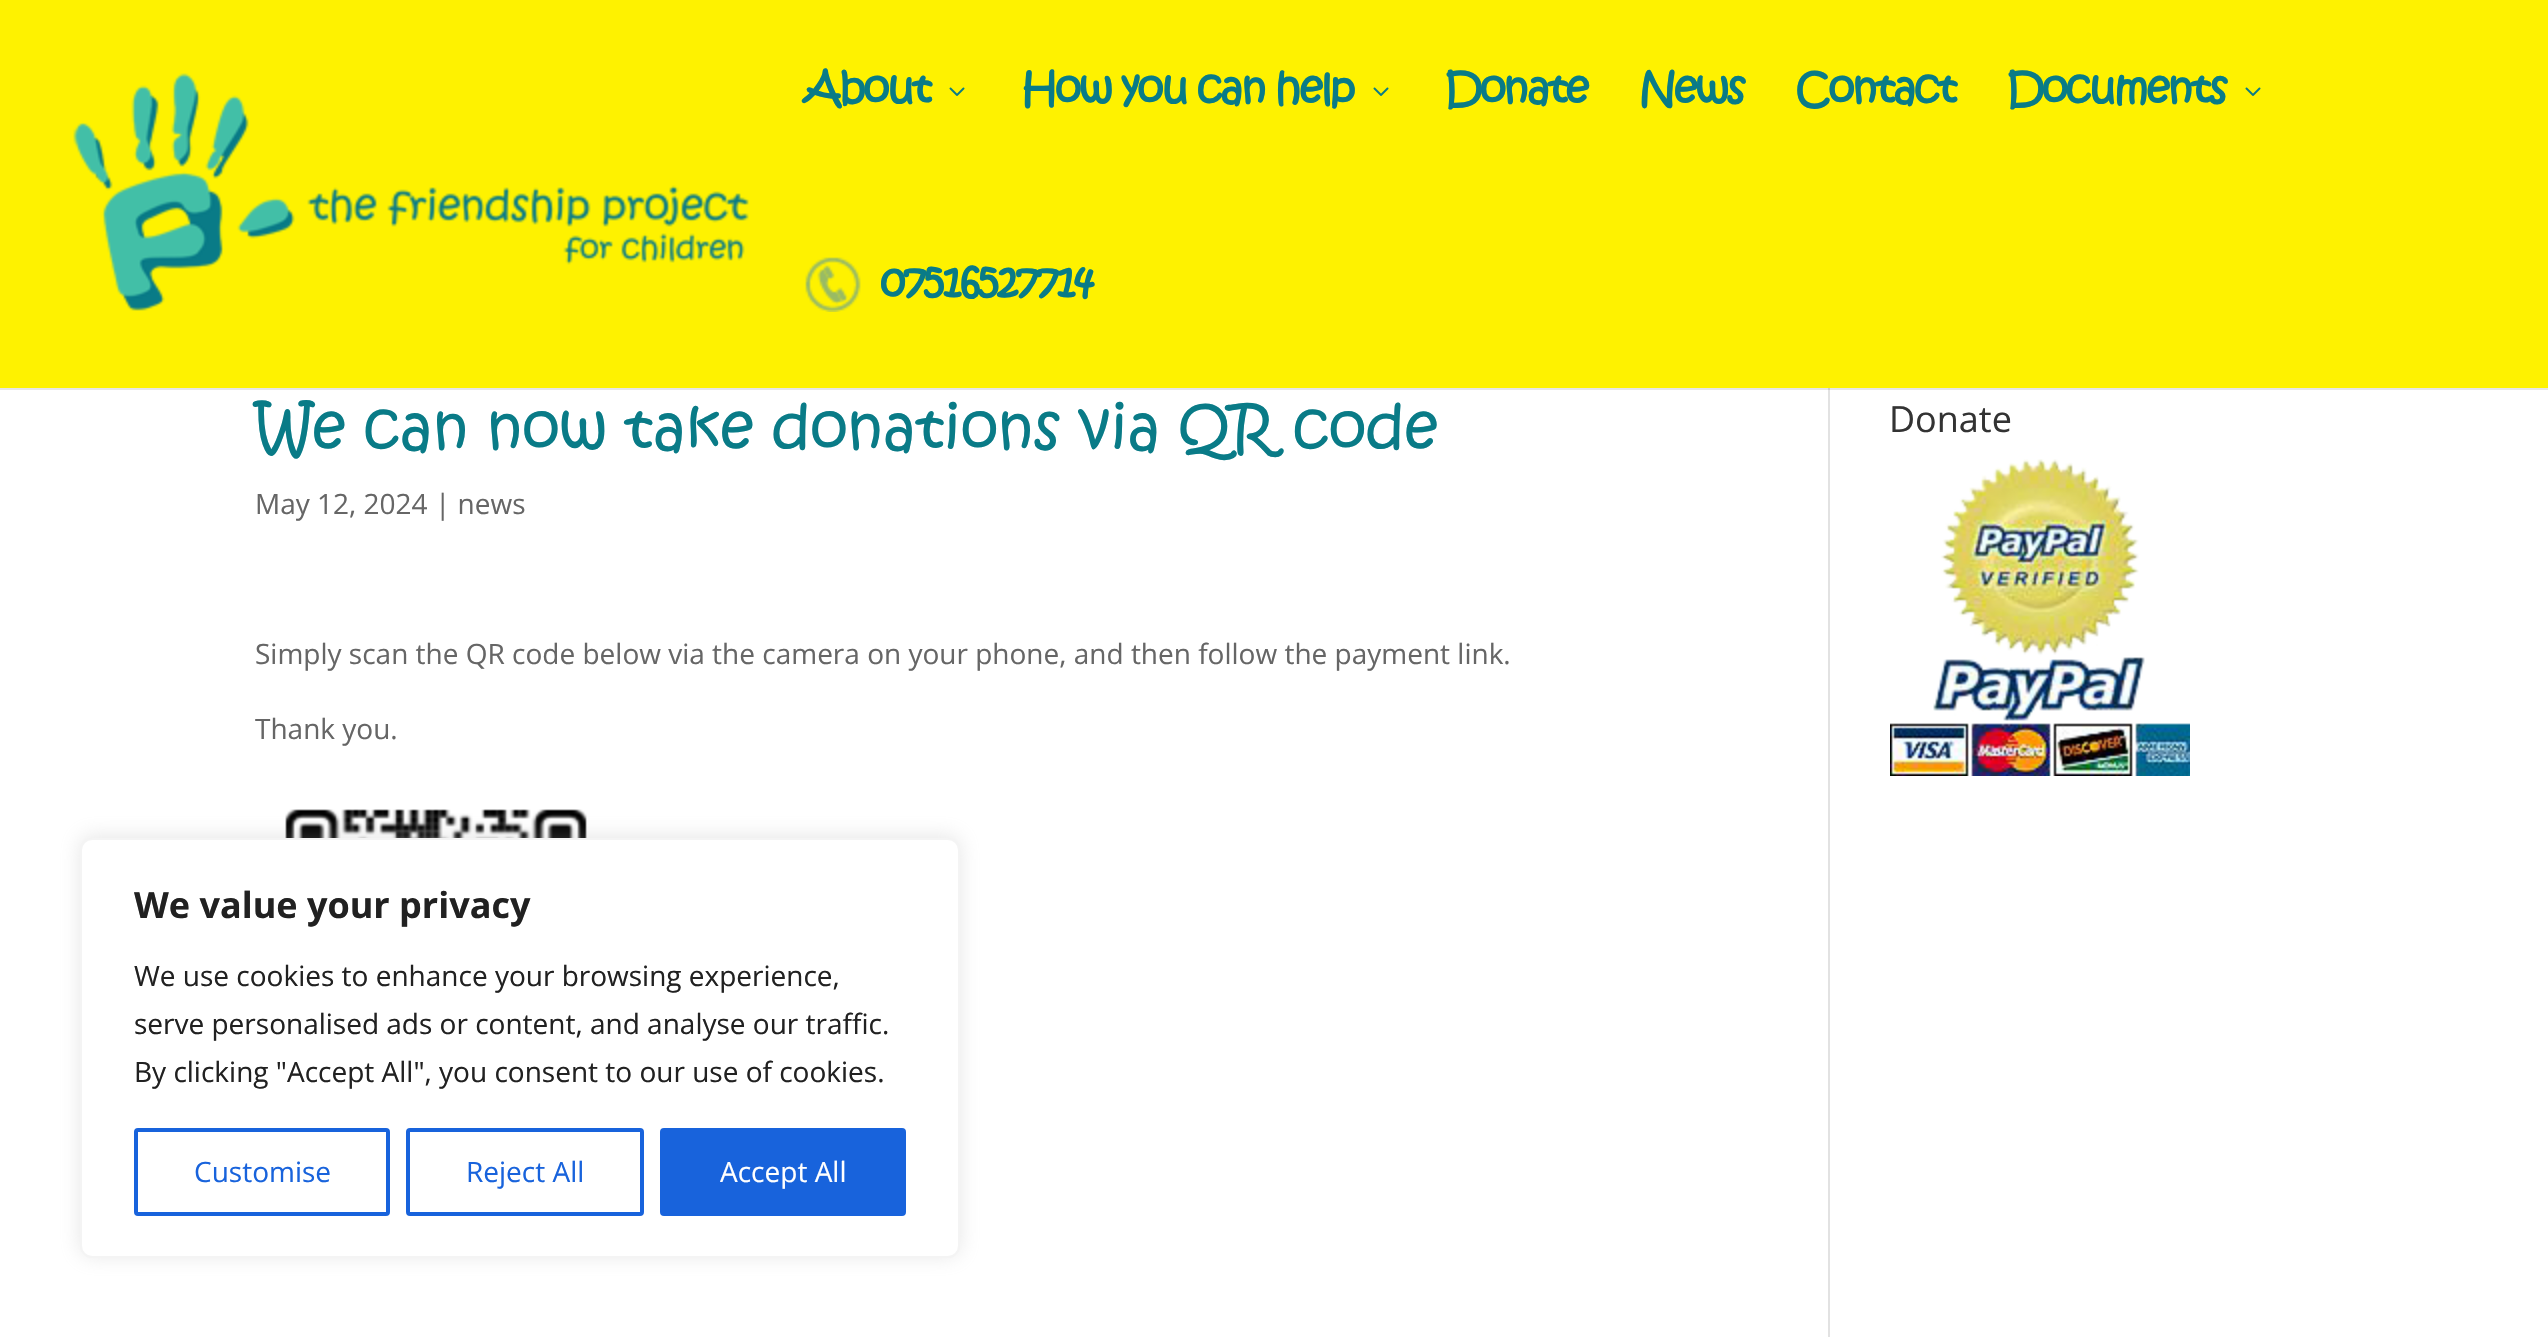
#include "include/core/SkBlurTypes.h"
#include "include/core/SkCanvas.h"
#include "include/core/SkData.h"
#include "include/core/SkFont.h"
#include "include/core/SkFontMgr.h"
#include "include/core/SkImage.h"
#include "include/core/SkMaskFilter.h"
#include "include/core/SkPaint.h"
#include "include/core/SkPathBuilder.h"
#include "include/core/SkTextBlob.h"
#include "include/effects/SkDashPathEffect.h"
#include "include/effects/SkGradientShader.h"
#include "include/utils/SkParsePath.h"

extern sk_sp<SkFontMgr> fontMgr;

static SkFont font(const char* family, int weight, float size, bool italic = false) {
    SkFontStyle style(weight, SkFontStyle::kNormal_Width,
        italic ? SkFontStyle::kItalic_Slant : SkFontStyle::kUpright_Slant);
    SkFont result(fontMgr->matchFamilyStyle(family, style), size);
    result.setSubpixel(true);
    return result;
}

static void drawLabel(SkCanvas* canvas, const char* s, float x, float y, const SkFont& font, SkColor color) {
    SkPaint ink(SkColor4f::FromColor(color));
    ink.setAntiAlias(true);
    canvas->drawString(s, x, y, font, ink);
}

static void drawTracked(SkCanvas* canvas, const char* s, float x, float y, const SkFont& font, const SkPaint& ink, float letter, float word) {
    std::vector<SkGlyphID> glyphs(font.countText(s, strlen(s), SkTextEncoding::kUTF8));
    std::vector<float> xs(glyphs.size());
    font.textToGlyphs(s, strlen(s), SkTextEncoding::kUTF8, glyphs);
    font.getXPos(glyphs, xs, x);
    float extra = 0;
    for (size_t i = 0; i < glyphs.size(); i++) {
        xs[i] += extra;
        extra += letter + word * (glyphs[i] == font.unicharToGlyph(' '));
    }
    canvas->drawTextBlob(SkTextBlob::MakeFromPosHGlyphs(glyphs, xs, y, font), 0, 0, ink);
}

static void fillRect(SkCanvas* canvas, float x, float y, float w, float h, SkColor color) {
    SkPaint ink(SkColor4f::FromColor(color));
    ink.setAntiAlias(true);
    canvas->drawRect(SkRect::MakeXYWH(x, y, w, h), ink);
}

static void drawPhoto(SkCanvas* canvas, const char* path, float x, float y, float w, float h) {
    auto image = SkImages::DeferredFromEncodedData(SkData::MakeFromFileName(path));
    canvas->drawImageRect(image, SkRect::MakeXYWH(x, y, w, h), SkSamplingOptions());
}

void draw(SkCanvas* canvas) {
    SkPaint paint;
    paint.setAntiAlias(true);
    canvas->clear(0xFFFFFFFF);
    fillRect(canvas, 0, 388, 2548, 2, 0xFFE6E6E6);
    fillRect(canvas, 0, 0, 2548, 388, 0xFFFEF200);
    drawPhoto(canvas, "assets/img1.png", 73, 73, 676, 238);
    SkFont font1 = font("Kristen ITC", 700, 42);
    paint.setColor(0xFF097B87);
    drawTracked(canvas, "About", 804, 104, font1, paint, -2, 0);
    drawPhoto(canvas, "assets/img2.png", 949, 87, 16, 9);
    drawTracked(canvas, "How you can help", 1021, 104, font1, paint, -2, 0);
    drawPhoto(canvas, "assets/img2.png", 1373, 87, 16, 9);
    drawTracked(canvas, "Donate", 1444, 104, font1, paint, -2, 0);
    drawTracked(canvas, "News", 1639, 104, font1, paint, -2, 0);
    drawTracked(canvas, "Contact", 1795, 104, font1, paint, -2, 0);
    drawTracked(canvas, "Documents", 2006, 104, font1, paint, -2, 0);
    drawPhoto(canvas, "assets/img2.png", 2245, 87, 16, 9);
    drawPhoto(canvas, "assets/img3.png", 805, 257, 56, 55);
    drawTracked(canvas, "07516527714", 880, 297, font1, paint, -2, 0);
    fillRect(canvas, 1828, 390, 2, 947, 0xFFE2E2E2);
    fillRect(canvas, 1828, 388, 2, 2, 0xFFCBCBCB);
    SkFont font2 = font("Kristen ITC", 400, 60);
    drawLabel(canvas, "We can now take donations via QR code", 255, 450, font2, 0xFF097B87);
    SkFont font3 = font("Open Sans", 400, 28);
    drawLabel(canvas, "May 12, 2024 | news", 255, 514, font3, 0xFF666666);
    drawLabel(canvas, "Simply scan the QR code below via the camera on your phone, and then follow the payment link.", 255, 664, font3, 0xFF666666);
    drawLabel(canvas, "Thank you.", 255, 739, font3, 0xFF666666);
    drawPhoto(canvas, "assets/img4.png", 285, 809, 302, 29);
    SkFont font4 = font("Open Sans", 400, 36);
    drawLabel(canvas, "Donate", 1889, 432, font4, 0xFF333333);
    drawPhoto(canvas, "assets/img5.png", 1890, 459, 300, 317);
    paint.setColor(0x4DACABAB);
    paint.setMaskFilter(SkMaskFilter::MakeBlur(kNormal_SkBlurStyle, 10));
    canvas->drawRoundRect(SkRect::MakeXYWH(80, 836, 880, 420), 12, 12, paint);
    paint.setMaskFilter(nullptr);
    paint.setColor(0xFFFFFFFF);
    canvas->drawRoundRect(SkRect::MakeXYWH(81, 839, 878, 418), 11, 11, paint);
    paint.setStroke(true);
    paint.setStrokeWidth(2);
    paint.setColor(0xFFF4F4F4);
    canvas->drawRoundRect(SkRect::MakeXYWH(81, 839, 878, 418), 11, 11, paint);
    SkFont font5 = font("Open Sans", 700, 36);
    drawLabel(canvas, "We value your privacy", 134, 918, font5, 0xFF212121);
    drawLabel(canvas, "We use cookies to enhance your browsing experience,", 134, 986, font3, 0xFF212121);
    drawLabel(canvas, "serve personalised ads or content, and analyse our traffic.", 134, 1034, font3, 0xFF212121);
    drawLabel(canvas, "By clicking \"Accept All\", you consent to our use of cookies.", 134, 1082, font3, 0xFF212121);
    paint.setStrokeWidth(4);
    paint.setColor(0xFF1863DC);
    canvas->drawRoundRect(SkRect::MakeXYWH(136, 1130, 252, 84), 2, 2, paint);
    drawLabel(canvas, "Customise", 194, 1182, font3, 0xFF1863DC);
    canvas->drawRoundRect(SkRect::MakeXYWH(408, 1130, 234, 84), 2, 2, paint);
    drawLabel(canvas, "Reject All", 466, 1182, font3, 0xFF1863DC);
    paint.setStroke(false);
    canvas->drawRoundRect(SkRect::MakeXYWH(662, 1130, 242, 84), 2, 2, paint);
    paint.setStroke(true);
    canvas->drawRoundRect(SkRect::MakeXYWH(662, 1130, 242, 84), 2, 2, paint);
    drawLabel(canvas, "Accept All", 720, 1182, font3, 0xFFFFFFFF);
}
